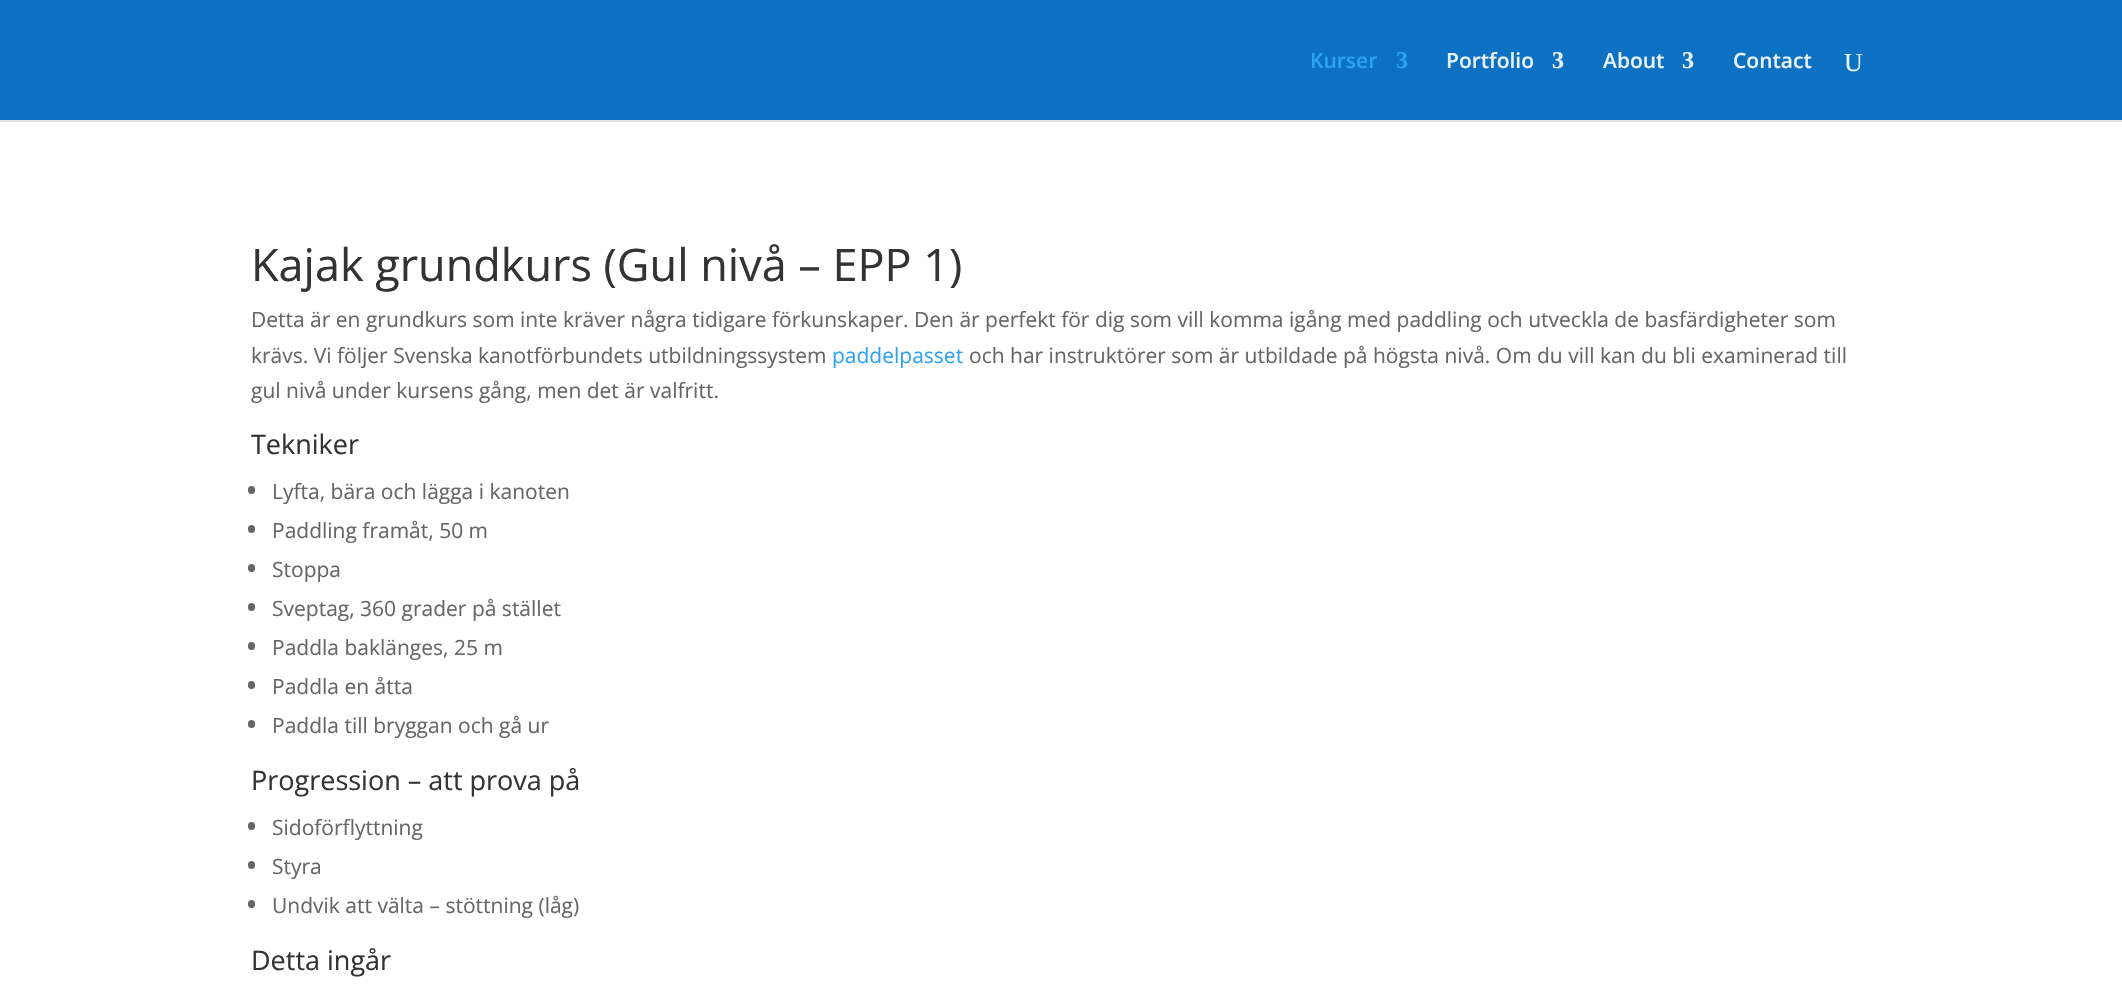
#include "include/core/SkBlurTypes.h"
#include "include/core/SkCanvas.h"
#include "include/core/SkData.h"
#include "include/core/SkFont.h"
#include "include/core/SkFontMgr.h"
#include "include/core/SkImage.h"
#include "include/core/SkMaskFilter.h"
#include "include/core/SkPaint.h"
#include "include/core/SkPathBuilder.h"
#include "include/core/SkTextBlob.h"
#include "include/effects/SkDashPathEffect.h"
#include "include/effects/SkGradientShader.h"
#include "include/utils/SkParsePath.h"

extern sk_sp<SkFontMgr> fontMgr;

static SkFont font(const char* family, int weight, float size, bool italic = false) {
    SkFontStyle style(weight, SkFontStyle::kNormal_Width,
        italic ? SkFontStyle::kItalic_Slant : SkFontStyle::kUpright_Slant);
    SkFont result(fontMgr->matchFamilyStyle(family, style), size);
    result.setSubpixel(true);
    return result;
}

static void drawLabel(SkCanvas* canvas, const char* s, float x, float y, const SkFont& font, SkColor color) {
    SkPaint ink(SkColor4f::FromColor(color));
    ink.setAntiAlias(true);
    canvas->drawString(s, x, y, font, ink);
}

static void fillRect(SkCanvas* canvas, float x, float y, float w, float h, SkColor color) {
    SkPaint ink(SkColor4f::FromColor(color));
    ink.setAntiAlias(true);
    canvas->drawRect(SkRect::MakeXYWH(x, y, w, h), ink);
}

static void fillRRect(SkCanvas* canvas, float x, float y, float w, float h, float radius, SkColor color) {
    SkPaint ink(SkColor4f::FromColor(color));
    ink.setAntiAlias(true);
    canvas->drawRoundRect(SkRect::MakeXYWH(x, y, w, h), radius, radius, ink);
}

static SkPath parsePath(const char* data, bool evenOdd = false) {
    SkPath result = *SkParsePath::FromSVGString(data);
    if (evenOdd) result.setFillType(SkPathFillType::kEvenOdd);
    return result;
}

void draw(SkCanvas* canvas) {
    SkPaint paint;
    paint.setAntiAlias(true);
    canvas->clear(0xFFFFFFFF);
    paint.setColor(0xFFE6E6E6);
    canvas->drawPath(parsePath("M0 120V122H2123V2H2122V120Z"), paint);
    fillRect(canvas, 0, 0, 2122, 120, 0xFF0C71C3);
    SkFont font1 = font("Open Sans", 600, 21);
    drawLabel(canvas, "Kurser", 1310, 68, font1, 0xFF2EA3F2);
    SkFont font2 = font("Liberation Serif", 700, 24);
    drawLabel(canvas, "3", 1396, 68, font2, 0xFF2EA3F2);
    drawLabel(canvas, "Portfolio", 1446, 68, font1, 0xFFE9F2FA);
    drawLabel(canvas, "3", 1552, 68, font2, 0xFFE9F2FA);
    drawLabel(canvas, "About", 1603, 68, font1, 0xFFE9F2FA);
    drawLabel(canvas, "3", 1682, 68, font2, 0xFFE9F2FA);
    drawLabel(canvas, "Contact", 1733, 68, font1, 0xFFE9F2FA);
    SkFont font3 = font("Liberation Serif", 400, 26);
    drawLabel(canvas, "U", 1844, 71, font3, 0xFFE9F2FA);
    SkFont font4 = font("Open Sans", 400, 45);
    drawLabel(canvas, "Kajak grundkurs (Gul nivå – EPP 1)", 251, 281, font4, 0xFF333333);
    SkFont font5 = font("Open Sans", 400, 21);
    drawLabel(canvas, "Detta är en grundkurs som inte kräver några tidigare förkunskaper. Den är perfekt för dig som vill komma igång med paddling och utveckla de basfärdigheter som", 251, 327, font5, 0xFF666666);
    drawLabel(canvas, "krävs. Vi följer Svenska kanotförbundets utbildningssystem", 251, 363, font5, 0xFF666666);
    drawLabel(canvas, "paddelpasset", 832, 363, font5, 0xFF2EA3F2);
    drawLabel(canvas, "och har instruktörer som är utbildade på högsta nivå. Om du vill kan du bli examinerad till", 969, 363, font5, 0xFF666666);
    drawLabel(canvas, "gul nivå under kursens gång, men det är valfritt.", 251, 398, font5, 0xFF666666);
    SkFont font6 = font("Open Sans", 400, 27);
    drawLabel(canvas, "Tekniker", 251, 454, font6, 0xFF333333);
    fillRRect(canvas, 248, 486, 7, 8, 3.5f, 0xFF666666);
    drawLabel(canvas, "Lyfta, bära och lägga i kanoten", 272, 499, font5, 0xFF666666);
    fillRRect(canvas, 248, 525, 7, 8, 3.5f, 0xFF666666);
    drawLabel(canvas, "Paddling framåt, 50 m", 272, 538, font5, 0xFF666666);
    fillRRect(canvas, 248, 564, 7, 8, 3.5f, 0xFF666666);
    drawLabel(canvas, "Stoppa", 272, 577, font5, 0xFF666666);
    fillRRect(canvas, 248, 603, 7, 8, 3.5f, 0xFF666666);
    drawLabel(canvas, "Sveptag, 360 grader på stället", 272, 616, font5, 0xFF666666);
    fillRRect(canvas, 248, 642, 7, 8, 3.5f, 0xFF666666);
    drawLabel(canvas, "Paddla baklänges, 25 m", 272, 655, font5, 0xFF666666);
    fillRRect(canvas, 248, 681, 7, 8, 3.5f, 0xFF666666);
    drawLabel(canvas, "Paddla en åtta", 272, 694, font5, 0xFF666666);
    fillRRect(canvas, 248, 720, 7, 8, 3.5f, 0xFF666666);
    drawLabel(canvas, "Paddla till bryggan och gå ur", 272, 733, font5, 0xFF666666);
    drawLabel(canvas, "Progression – att prova på", 251, 790, font6, 0xFF333333);
    fillRRect(canvas, 248, 822, 7, 8, 3.5f, 0xFF666666);
    drawLabel(canvas, "Sidoförflyttning", 272, 835, font5, 0xFF666666);
    fillRRect(canvas, 248, 861, 7, 8, 3.5f, 0xFF666666);
    drawLabel(canvas, "Styra", 272, 874, font5, 0xFF666666);
    fillRRect(canvas, 248, 900, 7, 8, 3.5f, 0xFF666666);
    drawLabel(canvas, "Undvik att välta – stöttning (låg)", 272, 913, font5, 0xFF666666);
    drawLabel(canvas, "Detta ingår", 251, 970, font6, 0xFF333333);
}
